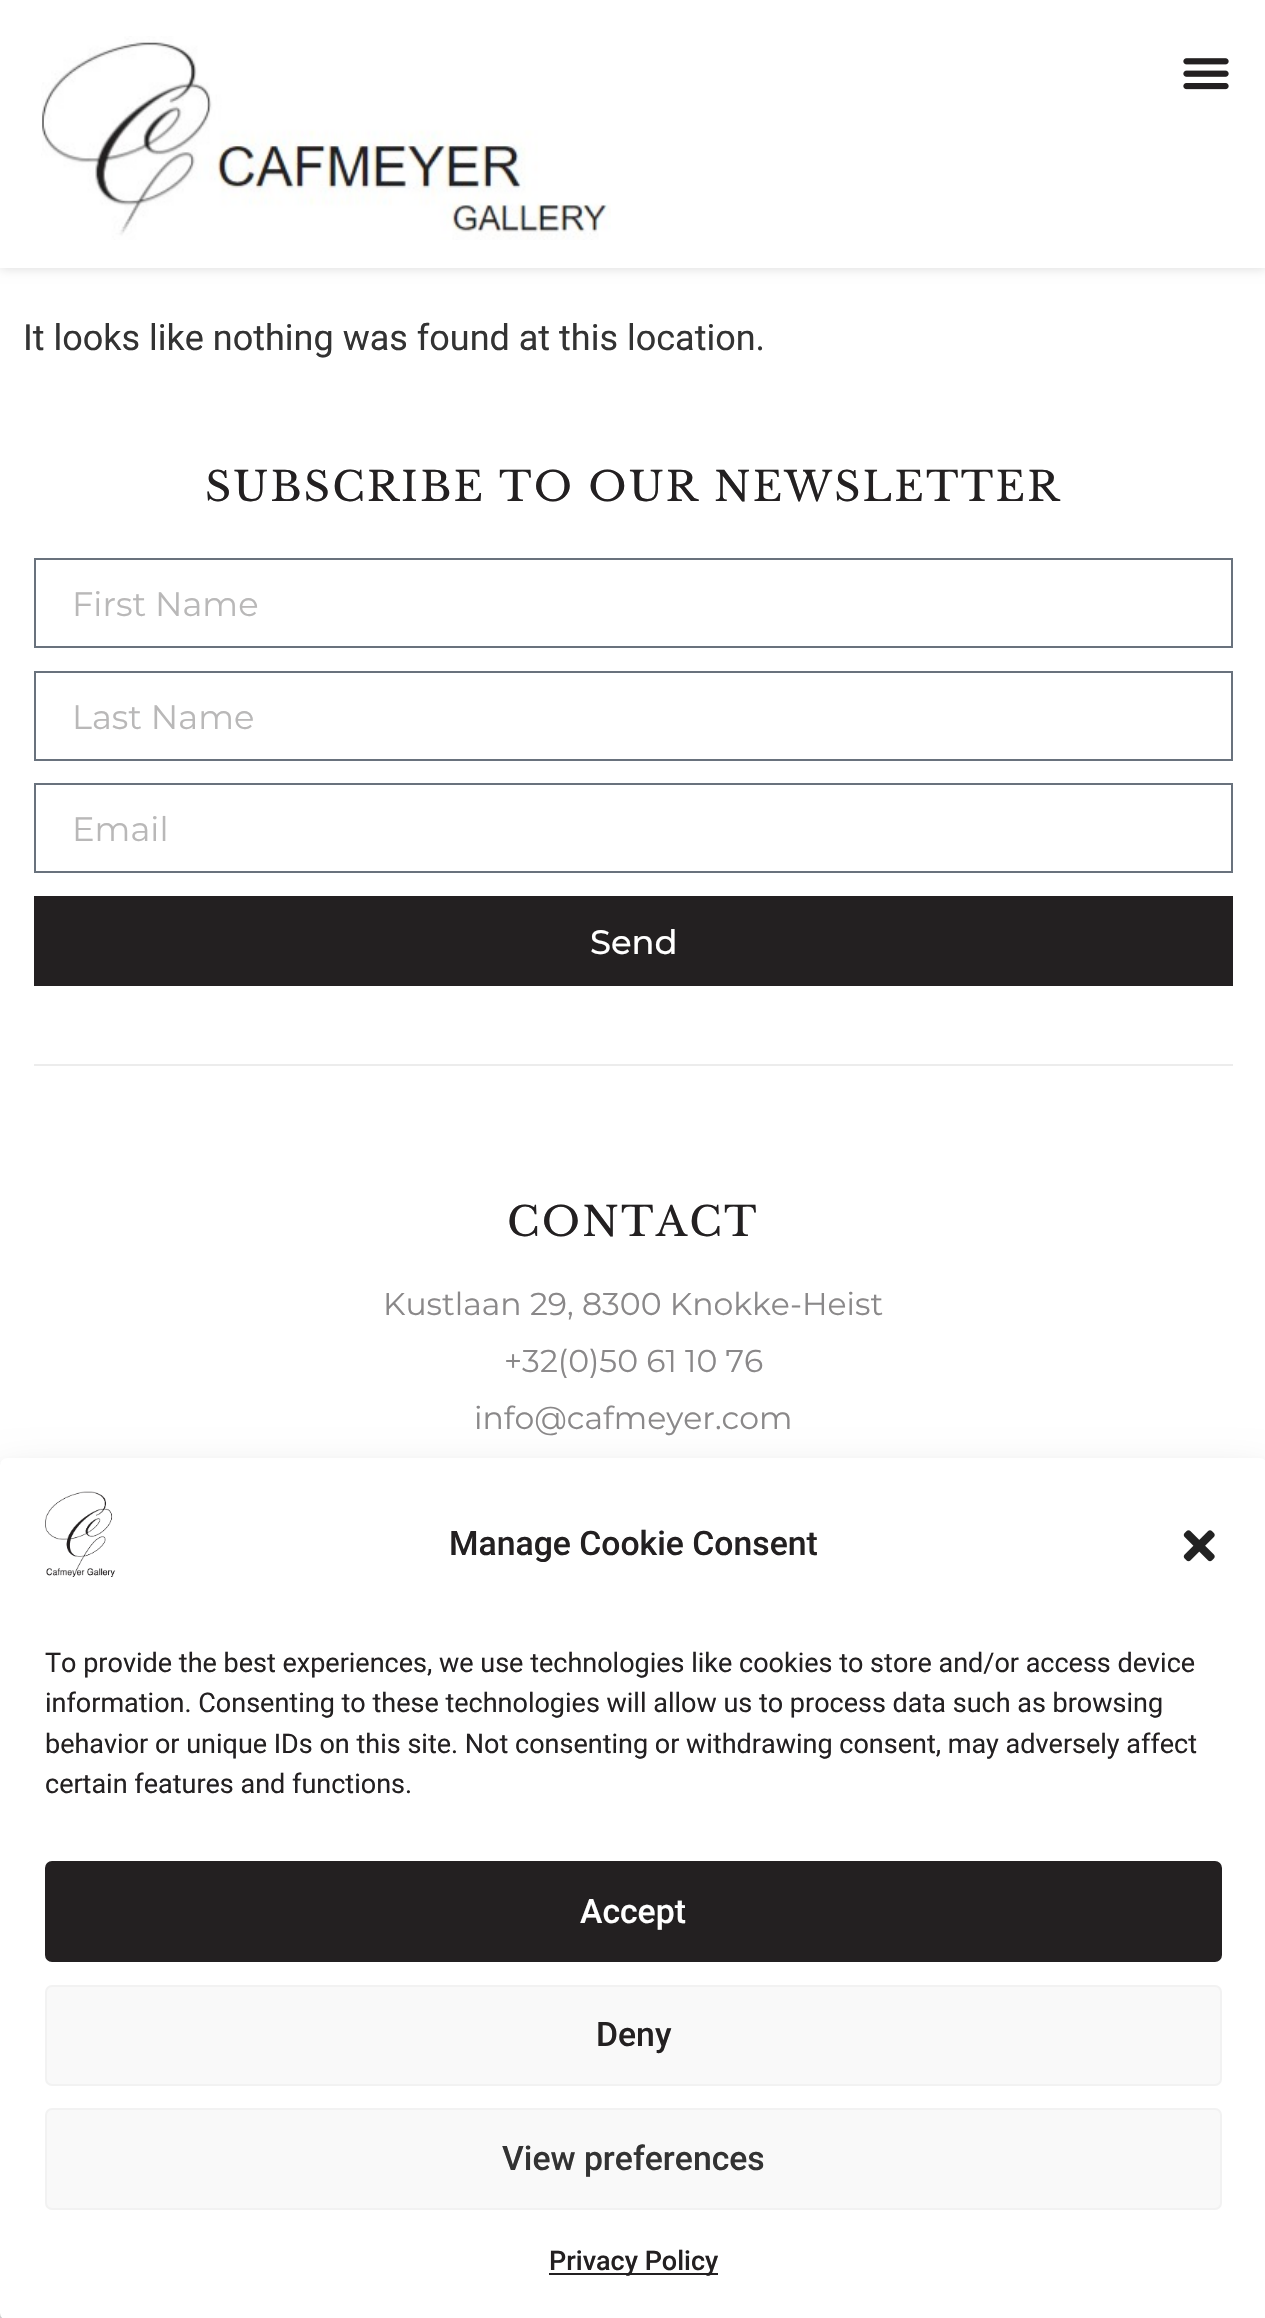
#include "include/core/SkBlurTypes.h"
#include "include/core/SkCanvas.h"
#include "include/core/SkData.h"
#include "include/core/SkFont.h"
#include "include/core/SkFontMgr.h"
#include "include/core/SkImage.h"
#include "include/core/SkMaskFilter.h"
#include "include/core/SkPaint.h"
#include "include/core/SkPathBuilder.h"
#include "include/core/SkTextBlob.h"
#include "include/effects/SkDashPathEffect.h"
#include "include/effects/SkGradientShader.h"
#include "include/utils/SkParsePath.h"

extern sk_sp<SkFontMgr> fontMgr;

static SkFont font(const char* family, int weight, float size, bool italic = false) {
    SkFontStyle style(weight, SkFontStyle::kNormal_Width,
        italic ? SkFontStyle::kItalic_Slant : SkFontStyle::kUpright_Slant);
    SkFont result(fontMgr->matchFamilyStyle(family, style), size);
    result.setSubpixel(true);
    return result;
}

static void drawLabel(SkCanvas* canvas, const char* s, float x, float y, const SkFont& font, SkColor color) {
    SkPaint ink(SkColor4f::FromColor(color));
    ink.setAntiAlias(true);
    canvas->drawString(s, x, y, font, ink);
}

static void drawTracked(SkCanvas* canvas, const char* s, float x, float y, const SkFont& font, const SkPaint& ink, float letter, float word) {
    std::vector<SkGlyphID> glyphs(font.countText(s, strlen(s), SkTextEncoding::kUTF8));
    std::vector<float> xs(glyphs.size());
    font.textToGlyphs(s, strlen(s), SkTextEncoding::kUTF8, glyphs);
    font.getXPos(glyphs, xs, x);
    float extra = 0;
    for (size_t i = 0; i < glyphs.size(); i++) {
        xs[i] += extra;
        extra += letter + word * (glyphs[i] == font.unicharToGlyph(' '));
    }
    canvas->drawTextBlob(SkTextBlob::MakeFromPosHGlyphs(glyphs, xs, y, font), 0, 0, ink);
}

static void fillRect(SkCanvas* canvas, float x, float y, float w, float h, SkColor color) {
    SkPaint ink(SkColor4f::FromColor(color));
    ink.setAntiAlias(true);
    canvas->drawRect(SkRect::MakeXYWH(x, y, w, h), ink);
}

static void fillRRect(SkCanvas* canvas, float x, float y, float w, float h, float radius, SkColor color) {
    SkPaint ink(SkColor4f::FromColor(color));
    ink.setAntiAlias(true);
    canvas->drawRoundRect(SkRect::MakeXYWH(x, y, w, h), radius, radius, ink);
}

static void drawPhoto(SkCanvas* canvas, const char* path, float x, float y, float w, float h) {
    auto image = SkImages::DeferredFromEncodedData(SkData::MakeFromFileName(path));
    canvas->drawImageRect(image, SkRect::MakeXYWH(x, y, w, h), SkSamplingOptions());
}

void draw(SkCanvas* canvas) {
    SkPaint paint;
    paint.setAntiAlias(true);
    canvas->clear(0xFFFFFFFF);
    paint.setColor(0x26000000);
    paint.setMaskFilter(SkMaskFilter::MakeBlur(kNormal_SkBlurStyle, 5.5f));
    canvas->drawRect(SkRect::MakeXYWH(0, 0, 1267, 268), paint);
    paint.setMaskFilter(nullptr);
    fillRect(canvas, 0, 0, 1265, 268, 0xFFFFFFFF);
    drawPhoto(canvas, "assets/img1.png", 41, 36, 570, 204);
    drawPhoto(canvas, "assets/img2.png", 1183, 58, 46, 32);
    SkFont font1 = font("Roboto", 400, 36);
    drawLabel(canvas, "It looks like nothing was found at this location.", 23, 350, font1, 0xFF333333);
    SkFont font2 = font("Libre Baskerville", 400, 40.5f);
    paint.setColor(0xFF232021);
    drawTracked(canvas, "SUBSCRIBE TO OUR NEWSLETTER", 205, 501, font2, paint, 2.25f, 0);
    paint.setStroke(true);
    paint.setStrokeWidth(2);
    paint.setColor(0xFF69727D);
    canvas->drawRect(SkRect::MakeXYWH(35, 559, 1197, 88), paint);
    SkFont font3 = font("Montserrat", 400, 33.75f);
    drawLabel(canvas, "First Name", 72, 616, font3, 0xFFB9B8B8);
    canvas->drawRect(SkRect::MakeXYWH(35, 672, 1197, 88), paint);
    drawLabel(canvas, "Last Name", 72, 729, font3, 0xFFB9B8B8);
    canvas->drawRect(SkRect::MakeXYWH(35, 784, 1197, 88), paint);
    drawLabel(canvas, "Email", 72, 841, font3, 0xFFB9B8B8);
    fillRect(canvas, 34, 896, 1199, 90, 0xFF232021);
    SkFont font4 = font("Montserrat", 500, 33.75f);
    drawLabel(canvas, "Send", 590, 954, font4, 0xFFFFFFFF);
    fillRect(canvas, 34, 1064, 1199, 2, 0xFFECECEC);
    paint.setStroke(false);
    paint.setColor(0xFF232021);
    drawTracked(canvas, "CONTACT", 507, 1236, font2, paint, 2.25f, 0);
    SkFont font5 = font("Montserrat", 400, 31.5f);
    drawLabel(canvas, "Kustlaan 29, 8300 Knokke-Heist", 383, 1315, font5, 0xFF8A8889);
    drawLabel(canvas, "+32(0)50 61 10 76", 504, 1372, font5, 0xFF8A8889);
    drawLabel(canvas, "info@cafmeyer.com", 474, 1429, font5, 0xFF8A8889);
    paint.setColor(0x3B000000);
    paint.setMaskFilter(SkMaskFilter::MakeBlur(kNormal_SkBlurStyle, 7));
    canvas->drawRoundRect(SkRect::MakeXYWH(0, 1472, 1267, 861), 7, 7, paint);
    paint.setMaskFilter(nullptr);
    paint.setColor(0x30000000);
    paint.setMaskFilter(SkMaskFilter::MakeBlur(kNormal_SkBlurStyle, 22.5f));
    canvas->drawRoundRect(SkRect::MakeXYWH(0, 1481, 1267, 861), 7, 7, paint);
    paint.setMaskFilter(nullptr);
    fillRRect(canvas, 0, 1458, 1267, 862, 7, 0xFFFFFFFF);
    drawPhoto(canvas, "assets/img3.png", 45, 1491, 71, 86);
    SkFont font6 = font("Roboto", 500, 33.75f);
    drawLabel(canvas, "Manage Cookie Consent", 449, 1555, font6, 0xFF232021);
    drawPhoto(canvas, "assets/img4.png", 1183, 1530, 32, 32);
    SkFont font7 = font("Roboto", 400, 27);
    drawLabel(canvas, "To provide the best experiences, we use technologies like cookies to store and/or access device", 45, 1672, font7, 0xFF232021);
    drawLabel(canvas, "information. Consenting to these technologies will allow us to process data such as browsing", 45, 1712, font7, 0xFF232021);
    drawLabel(canvas, "behavior or unique IDs on this site. Not consenting or withdrawing consent, may adversely affect", 45, 1753, font7, 0xFF232021);
    drawLabel(canvas, "certain features and functions.", 45, 1793, font7, 0xFF232021);
    paint.setColor(0xFF232021);
    canvas->drawRoundRect(SkRect::MakeXYWH(46, 1862, 1175, 99), 6, 6, paint);
    paint.setStroke(true);
    canvas->drawRoundRect(SkRect::MakeXYWH(46, 1862, 1175, 99), 6, 6, paint);
    drawLabel(canvas, "Accept", 580, 1923, font6, 0xFFFFFFFF);
    paint.setStroke(false);
    paint.setColor(0xFFF9F9F9);
    canvas->drawRoundRect(SkRect::MakeXYWH(46, 1986, 1175, 99), 6, 6, paint);
    paint.setStroke(true);
    paint.setColor(0xFFF2F2F2);
    canvas->drawRoundRect(SkRect::MakeXYWH(46, 1986, 1175, 99), 6, 6, paint);
    drawLabel(canvas, "Deny", 596, 2046, font6, 0xFF232021);
    paint.setStroke(false);
    paint.setColor(0xFFF9F9F9);
    canvas->drawRoundRect(SkRect::MakeXYWH(46, 2109, 1175, 100), 6, 6, paint);
    paint.setStroke(true);
    paint.setColor(0xFFF2F2F2);
    canvas->drawRoundRect(SkRect::MakeXYWH(46, 2109, 1175, 100), 6, 6, paint);
    drawLabel(canvas, "View preferences", 502, 2170, font6, 0xFF333333);
    fillRect(canvas, 549, 2273, 169, 2, 0xFF232021);
    SkFont font8 = font("Roboto", 500, 27);
    drawLabel(canvas, "Privacy Policy", 549, 2270, font8, 0xFF232021);
}
